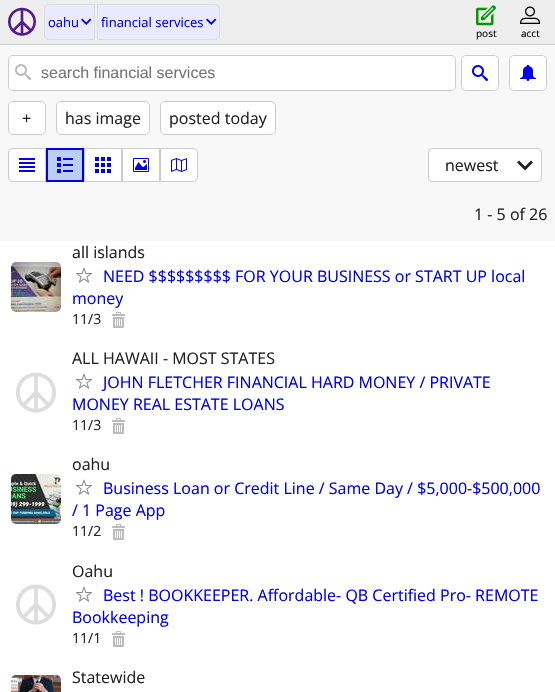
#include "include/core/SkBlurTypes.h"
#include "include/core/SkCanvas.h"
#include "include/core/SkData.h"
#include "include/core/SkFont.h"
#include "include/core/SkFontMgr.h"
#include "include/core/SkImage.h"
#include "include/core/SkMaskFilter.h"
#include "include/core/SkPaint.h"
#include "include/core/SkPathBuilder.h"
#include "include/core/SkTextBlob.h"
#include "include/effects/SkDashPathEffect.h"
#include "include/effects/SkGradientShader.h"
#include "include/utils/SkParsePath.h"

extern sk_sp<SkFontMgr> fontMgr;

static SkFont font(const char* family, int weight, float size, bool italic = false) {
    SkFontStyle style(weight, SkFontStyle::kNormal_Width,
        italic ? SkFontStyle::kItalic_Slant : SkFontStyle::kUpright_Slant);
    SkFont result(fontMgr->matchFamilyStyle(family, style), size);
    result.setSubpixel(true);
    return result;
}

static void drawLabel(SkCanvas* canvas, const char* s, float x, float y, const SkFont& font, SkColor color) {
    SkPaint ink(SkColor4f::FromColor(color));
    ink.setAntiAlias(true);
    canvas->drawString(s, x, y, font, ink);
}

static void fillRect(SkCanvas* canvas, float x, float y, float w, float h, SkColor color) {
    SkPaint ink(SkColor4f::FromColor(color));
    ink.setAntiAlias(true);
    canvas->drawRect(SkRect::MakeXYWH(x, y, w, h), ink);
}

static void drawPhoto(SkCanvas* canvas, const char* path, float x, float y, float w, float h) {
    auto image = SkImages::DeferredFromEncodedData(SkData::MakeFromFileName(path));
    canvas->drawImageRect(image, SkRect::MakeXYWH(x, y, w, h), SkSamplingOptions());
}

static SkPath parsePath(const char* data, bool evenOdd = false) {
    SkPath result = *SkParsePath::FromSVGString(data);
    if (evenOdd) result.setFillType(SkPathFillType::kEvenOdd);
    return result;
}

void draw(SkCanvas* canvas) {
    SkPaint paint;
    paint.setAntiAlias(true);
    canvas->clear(0xFFFFFFFF);
    fillRect(canvas, 0, 0, 555, 44, 0xFFEEEEEE);
    fillRect(canvas, 0, 44, 555, 1, 0xFFCCCCCC);
    drawPhoto(canvas, "assets/img1.png", 8, 7, 28, 29);
    paint.setColor(0xFFEAEAFF);
    canvas->drawPath(parsePath("M49 4.5H94.5V39.5H49C46.5 39.5 44.5 37.5 44.5 35V9C44.5 6.5 46.5 4.5 49 4.5Z"), paint);
    paint.setStroke(true);
    paint.setStrokeWidth(1);
    paint.setColor(0xFFDDDDDD);
    canvas->drawPath(parsePath("M49 4.5H94.5V39.5H49C46.5 39.5 44.5 37.5 44.5 35V9C44.5 6.5 46.5 4.5 49 4.5Z"), paint);
    SkFont font1 = font("Open Sans", 400, 13);
    drawLabel(canvas, "oahu", 48, 27, font1, 0xFF0000EE);
    drawPhoto(canvas, "assets/img2.png", 81, 18, 11, 7);
    paint.setStroke(false);
    paint.setColor(0xFFEAEAFF);
    canvas->drawPath(parsePath("M97.5 4.5H215C217.5 4.5 219.5 6.5 219.5 9V35C219.5 37.5 217.5 39.5 215 39.5H97.5Z"), paint);
    paint.setStroke(true);
    paint.setColor(0xFFDDDDDD);
    canvas->drawPath(parsePath("M97.5 4.5H215C217.5 4.5 219.5 6.5 219.5 9V35C219.5 37.5 217.5 39.5 215 39.5H97.5Z"), paint);
    drawLabel(canvas, "financial services", 101, 27, font1, 0xFF0000EE);
    drawPhoto(canvas, "assets/img2.png", 206, 18, 11, 7);
    drawPhoto(canvas, "assets/img3.png", 476, 5, 20, 21);
    SkFont font2 = font("Open Sans", 400, 10);
    drawLabel(canvas, "post", 476, 37, font2, 0xFF000000);
    drawPhoto(canvas, "assets/img4.png", 520, 6, 20, 18);
    drawLabel(canvas, "acct", 521, 37, font2, 0xFF000000);
    fillRect(canvas, 0, 45, 555, 196, 0xFFF8F8F8);
    paint.setStroke(false);
    paint.setColor(0xFFFFFFFF);
    canvas->drawRoundRect(SkRect::MakeXYWH(8.5f, 55.5f, 447, 35), 4.5f, 4.5f, paint);
    paint.setStroke(true);
    paint.setColor(0xFFCCCCCC);
    canvas->drawRoundRect(SkRect::MakeXYWH(8.5f, 55.5f, 447, 35), 4.5f, 4.5f, paint);
    drawPhoto(canvas, "assets/img5.png", 15, 64, 16, 16);
    SkFont font3 = font("Liberation Sans", 400, 16);
    drawLabel(canvas, "search financial services", 41, 78, font3, 0xFF757575);
    paint.setStroke(false);
    paint.setColor(0xFFFFFFFF);
    canvas->drawRoundRect(SkRect::MakeXYWH(461.5f, 55.5f, 37, 35), 4.5f, 4.5f, paint);
    paint.setStroke(true);
    paint.setColor(0xFFCCCCCC);
    canvas->drawRoundRect(SkRect::MakeXYWH(461.5f, 55.5f, 37, 35), 4.5f, 4.5f, paint);
    drawPhoto(canvas, "assets/img6.png", 472, 65, 16, 16);
    paint.setStroke(false);
    paint.setColor(0xFFFFFFFF);
    canvas->drawRoundRect(SkRect::MakeXYWH(509.5f, 55.5f, 37, 35), 4.5f, 4.5f, paint);
    paint.setStroke(true);
    paint.setColor(0xFFCCCCCC);
    canvas->drawRoundRect(SkRect::MakeXYWH(509.5f, 55.5f, 37, 35), 4.5f, 4.5f, paint);
    drawPhoto(canvas, "assets/img7.png", 520, 65, 16, 16);
    paint.setStroke(false);
    paint.setColor(0xFFFFFFFF);
    canvas->drawRoundRect(SkRect::MakeXYWH(8.5f, 101.5f, 37, 33), 4.5f, 4.5f, paint);
    paint.setStroke(true);
    paint.setColor(0xFFCCCCCC);
    canvas->drawRoundRect(SkRect::MakeXYWH(8.5f, 101.5f, 37, 33), 4.5f, 4.5f, paint);
    SkFont font4 = font("Open Sans", 400, 16);
    drawLabel(canvas, "+", 22, 124, font4, 0xFF222222);
    paint.setStroke(false);
    paint.setColor(0xFFFFFFFF);
    canvas->drawRoundRect(SkRect::MakeXYWH(56.5f, 101.5f, 93, 33), 4.5f, 4.5f, paint);
    paint.setStroke(true);
    paint.setColor(0xFFCCCCCC);
    canvas->drawRoundRect(SkRect::MakeXYWH(56.5f, 101.5f, 93, 33), 4.5f, 4.5f, paint);
    drawLabel(canvas, "has image", 65, 124, font4, 0xFF222222);
    paint.setStroke(false);
    paint.setColor(0xFFFFFFFF);
    canvas->drawRoundRect(SkRect::MakeXYWH(160.5f, 101.5f, 115, 33), 4.5f, 4.5f, paint);
    paint.setStroke(true);
    paint.setColor(0xFFCCCCCC);
    canvas->drawRoundRect(SkRect::MakeXYWH(160.5f, 101.5f, 115, 33), 4.5f, 4.5f, paint);
    drawLabel(canvas, "posted today", 169, 124, font4, 0xFF222222);
    paint.setStroke(false);
    paint.setColor(0xFFFFFFFF);
    canvas->drawPath(parsePath("M13 148.5H45.5V181.5H13C10.5 181.5 8.5 179.5 8.5 177V153C8.5 150.5 10.5 148.5 13 148.5Z"), paint);
    paint.setStroke(true);
    paint.setColor(0xFFCCCCCC);
    canvas->drawPath(parsePath("M13 148.5H45.5V181.5H13C10.5 181.5 8.5 179.5 8.5 177V153C8.5 150.5 10.5 148.5 13 148.5Z"), paint);
    drawPhoto(canvas, "assets/img8.png", 19, 158, 16, 14);
    paint.setStroke(false);
    paint.setColor(0xFFBACFF2);
    canvas->drawRect(SkRect::MakeXYWH(47, 149, 36, 32), paint);
    paint.setStroke(true);
    paint.setStrokeWidth(2);
    paint.setColor(0xFF0000EE);
    canvas->drawRect(SkRect::MakeXYWH(47, 149, 36, 32), paint);
    drawPhoto(canvas, "assets/img9.png", 57, 157, 16, 16);
    paint.setStroke(false);
    paint.setColor(0xFFFFFFFF);
    canvas->drawRect(SkRect::MakeXYWH(84.5f, 148.5f, 37, 33), paint);
    paint.setStroke(true);
    paint.setStrokeWidth(1);
    paint.setColor(0xFFCCCCCC);
    canvas->drawRect(SkRect::MakeXYWH(84.5f, 148.5f, 37, 33), paint);
    drawPhoto(canvas, "assets/img10.png", 95, 157, 16, 16);
    paint.setStroke(false);
    paint.setColor(0xFFFFFFFF);
    canvas->drawRect(SkRect::MakeXYWH(122.5f, 148.5f, 37, 33), paint);
    paint.setStroke(true);
    paint.setColor(0xFFCCCCCC);
    canvas->drawRect(SkRect::MakeXYWH(122.5f, 148.5f, 37, 33), paint);
    drawPhoto(canvas, "assets/img11.png", 133, 158, 16, 14);
    paint.setStroke(false);
    paint.setColor(0xFFFFFFFF);
    canvas->drawPath(parsePath("M160.5 148.5H193C195.5 148.5 197.5 150.5 197.5 153V177C197.5 179.5 195.5 181.5 193 181.5H160.5Z"), paint);
    paint.setStroke(true);
    paint.setColor(0xFFCCCCCC);
    canvas->drawPath(parsePath("M160.5 148.5H193C195.5 148.5 197.5 150.5 197.5 153V177C197.5 179.5 195.5 181.5 193 181.5H160.5Z"), paint);
    drawPhoto(canvas, "assets/img12.png", 171, 158, 16, 14);
    paint.setStroke(false);
    paint.setColor(0xFFFFFFFF);
    canvas->drawRoundRect(SkRect::MakeXYWH(428.5f, 148.5f, 113, 33), 3.5f, 3.5f, paint);
    paint.setStroke(true);
    paint.setColor(0xFFCCCCCC);
    canvas->drawRoundRect(SkRect::MakeXYWH(428.5f, 148.5f, 113, 33), 3.5f, 3.5f, paint);
    drawLabel(canvas, "newest", 445, 171, font4, 0xFF222222);
    drawPhoto(canvas, "assets/img13.png", 517, 160, 16, 11);
    drawLabel(canvas, "1 - 5 of 26", 474, 220, font4, 0xFF222222);
    drawPhoto(canvas, "assets/img14.png", 11, 262, 50, 50);
    drawLabel(canvas, "all islands", 72, 258, font4, 0xFF222222);
    drawPhoto(canvas, "assets/img15.png", 76, 267, 16, 16);
    drawLabel(canvas, "NEED $$$$$$$$$ FOR YOUR BUSINESS or START UP local", 103, 282, font4, 0xFF0000EE);
    drawLabel(canvas, "money", 72, 304, font4, 0xFF0000EE);
    SkFont font5 = font("Open Sans", 400, 14);
    drawLabel(canvas, "11/3", 72, 324, font5, 0xFF222222);
    drawPhoto(canvas, "assets/img16.png", 112, 312, 13, 16);
    drawPhoto(canvas, "assets/img17.png", 16, 372, 40, 41);
    drawLabel(canvas, "ALL HAWAII - MOST STATES", 72, 364, font4, 0xFF222222);
    drawPhoto(canvas, "assets/img15.png", 76, 373, 16, 16);
    drawLabel(canvas, "JOHN FLETCHER FINANCIAL HARD MONEY / PRIVATE", 103, 388, font4, 0xFF0000EE);
    drawLabel(canvas, "MONEY REAL ESTATE LOANS", 72, 410, font4, 0xFF0000EE);
    drawLabel(canvas, "11/3", 72, 430, font5, 0xFF222222);
    drawPhoto(canvas, "assets/img16.png", 112, 418, 13, 16);
    drawPhoto(canvas, "assets/img18.png", 11, 474, 50, 50);
    drawLabel(canvas, "oahu", 72, 470, font4, 0xFF222222);
    drawPhoto(canvas, "assets/img15.png", 76, 479, 16, 16);
    drawLabel(canvas, "Business Loan or Credit Line / Same Day / $5,000-$500,000", 103, 494, font4, 0xFF0000EE);
    drawLabel(canvas, "/ 1 Page App", 72, 516, font4, 0xFF0000EE);
    drawLabel(canvas, "11/2", 72, 536, font5, 0xFF222222);
    drawPhoto(canvas, "assets/img16.png", 112, 524, 13, 16);
    drawPhoto(canvas, "assets/img17.png", 16, 584, 40, 41);
    drawLabel(canvas, "Oahu", 72, 577, font4, 0xFF222222);
    drawPhoto(canvas, "assets/img15.png", 76, 586, 16, 16);
    drawLabel(canvas, "Best ! BOOKKEEPER. Affordable- QB Certified Pro- REMOTE", 103, 601, font4, 0xFF0000EE);
    drawLabel(canvas, "Bookkeeping", 72, 623, font4, 0xFF0000EE);
    drawLabel(canvas, "11/1", 72, 643, font5, 0xFF222222);
    drawPhoto(canvas, "assets/img16.png", 112, 631, 13, 16);
    drawPhoto(canvas, "assets/img19.png", 11, 675, 50, 17);
    drawLabel(canvas, "Statewide", 72, 683, font4, 0xFF222222);
}
